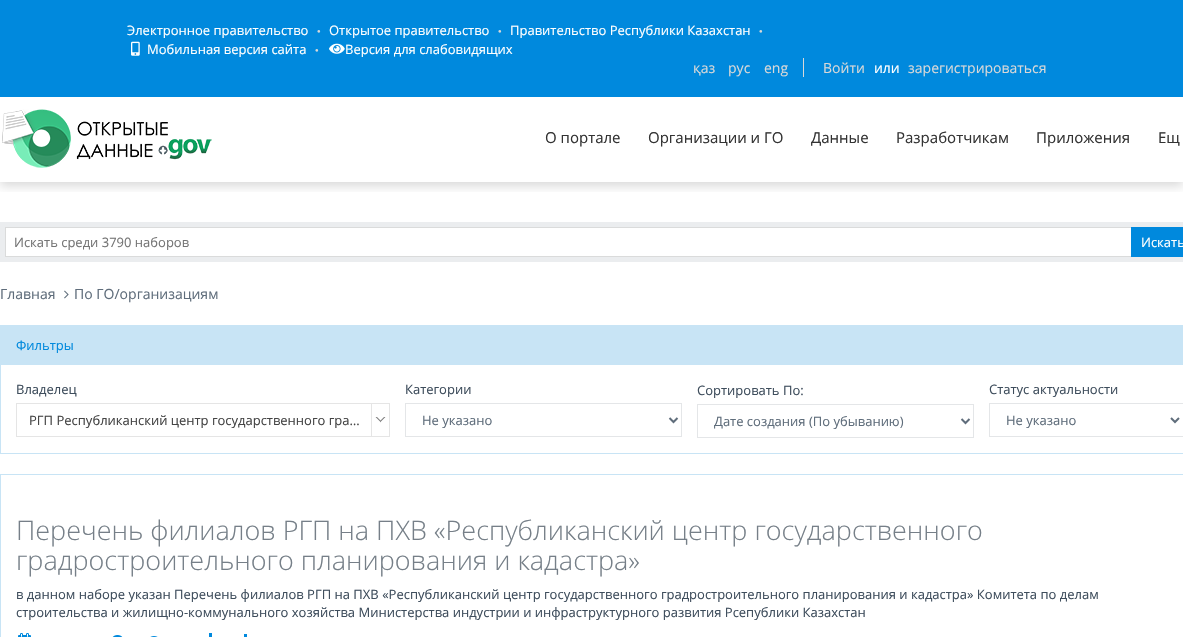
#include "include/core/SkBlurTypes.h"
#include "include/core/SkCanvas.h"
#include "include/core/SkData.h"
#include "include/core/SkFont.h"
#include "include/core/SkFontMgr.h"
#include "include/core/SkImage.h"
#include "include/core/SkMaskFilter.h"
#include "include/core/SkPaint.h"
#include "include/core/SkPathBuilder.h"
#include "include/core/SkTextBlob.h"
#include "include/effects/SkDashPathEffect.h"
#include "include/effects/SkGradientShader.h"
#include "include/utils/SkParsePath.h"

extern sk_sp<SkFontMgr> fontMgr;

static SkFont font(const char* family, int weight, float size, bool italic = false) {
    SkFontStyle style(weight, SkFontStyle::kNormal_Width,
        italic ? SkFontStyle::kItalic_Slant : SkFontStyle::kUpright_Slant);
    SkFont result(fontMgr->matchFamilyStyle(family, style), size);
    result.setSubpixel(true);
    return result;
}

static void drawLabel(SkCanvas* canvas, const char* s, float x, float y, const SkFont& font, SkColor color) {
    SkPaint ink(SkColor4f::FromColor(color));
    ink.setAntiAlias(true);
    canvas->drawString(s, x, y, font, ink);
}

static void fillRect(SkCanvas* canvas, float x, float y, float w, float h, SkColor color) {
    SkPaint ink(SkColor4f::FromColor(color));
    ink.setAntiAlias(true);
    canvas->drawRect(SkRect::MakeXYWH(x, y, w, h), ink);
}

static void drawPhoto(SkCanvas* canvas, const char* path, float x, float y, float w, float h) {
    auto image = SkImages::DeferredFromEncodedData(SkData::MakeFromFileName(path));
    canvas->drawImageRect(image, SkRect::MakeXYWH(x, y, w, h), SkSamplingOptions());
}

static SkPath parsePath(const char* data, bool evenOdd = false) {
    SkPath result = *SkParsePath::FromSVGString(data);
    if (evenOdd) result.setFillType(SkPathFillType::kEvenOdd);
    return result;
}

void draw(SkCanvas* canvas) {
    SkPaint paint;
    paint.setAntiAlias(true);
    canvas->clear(0xFFFFFFFF);
    canvas->save();
    canvas->clipRect(SkRect::MakeXYWH(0, 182, 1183, 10));
    paint.setColor(0x26000000);
    paint.setMaskFilter(SkMaskFilter::MakeBlur(kNormal_SkBlurStyle, 5));
    canvas->drawRect(SkRect::MakeXYWH(0, 4, 1183, 182), paint);
    paint.setMaskFilter(nullptr);
    canvas->restore();
    fillRect(canvas, 0, 0, 1183, 97, 0xFF0089DD);
    SkFont font1 = font("Open Sans", 400, 13);
    drawLabel(canvas, "Электронное правительство", 127, 35, font1, 0xFFFFFFFF);
    SkFont font2 = font("Liberation Sans", 400, 6);
    drawLabel(canvas, "●", 317, 33, font2, 0xFFD8D8D8);
    drawLabel(canvas, "Открытое правительство", 329, 35, font1, 0xFFFFFFFF);
    drawLabel(canvas, "●", 498, 33, font2, 0xFFD8D8D8);
    drawLabel(canvas, "Правительство Республики Казахстан", 510, 35, font1, 0xFFFFFFFF);
    drawLabel(canvas, "●", 759, 33, font2, 0xFFD8D8D8);
    drawPhoto(canvas, "assets/img1.png", 131, 41, 9, 15);
    drawLabel(canvas, "Мобильная версия сайта", 147, 54, font1, 0xFFFFFFFF);
    drawLabel(canvas, "●", 315, 52, font2, 0xFFD8D8D8);
    drawPhoto(canvas, "assets/img2.png", 329, 43, 16, 11);
    drawLabel(canvas, "Версия для слабовидящих", 345, 54, font1, 0xFFFFFFFF);
    fillRect(canvas, 803, 58, 1, 19, 0xFFD8D8D8);
    SkFont font3 = font("Open Sans", 400, 14);
    drawLabel(canvas, "қаз", 693, 73, font3, 0xFFD8D8D8);
    drawLabel(canvas, "рус", 728, 73, font3, 0xFFD8D8D8);
    drawLabel(canvas, "eng", 764, 73, font3, 0xFFD8D8D8);
    drawLabel(canvas, "Войти", 823, 73, font3, 0xFFD8D8D8);
    drawLabel(canvas, "или", 874, 73, font3, 0xFFFFFFFF);
    drawLabel(canvas, "зарегистрироваться", 908, 73, font3, 0xFFD8D8D8);
    drawPhoto(canvas, "assets/img3.png", 2, 109, 210, 59);
    SkFont font4 = font("Open Sans", 400, 15);
    drawLabel(canvas, "О портале", 545, 143, font4, 0xFF333333);
    drawLabel(canvas, "Организации и ГО", 648, 143, font4, 0xFF333333);
    drawLabel(canvas, "Данные", 811, 143, font4, 0xFF333333);
    drawLabel(canvas, "Разработчикам", 896, 143, font4, 0xFF333333);
    drawLabel(canvas, "Приложения", 1036, 143, font4, 0xFF333333);
    drawLabel(canvas, "Ещ", 1158, 143, font4, 0xFF333333);
    paint.setStroke(true);
    paint.setStrokeWidth(5);
    paint.setColor(0xFFEBEDEF);
    canvas->drawRect(SkRect::MakeXYWH(2.5f, 224.5f, 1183, 35), paint);
    paint.setStrokeWidth(1);
    paint.setColor(0xFFDADBDB);
    canvas->drawRect(SkRect::MakeXYWH(5.5f, 227.5f, 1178, 29), paint);
    drawLabel(canvas, "Искать среди 3790 наборов", 14, 247, font1, 0xFF757575);
    fillRect(canvas, 1131, 227, 52, 30, 0xFF0089DD);
    drawLabel(canvas, "Искать", 1141, 247, font1, 0xFFFFFFFF);
    drawLabel(canvas, "Главная", 0, 299, font3, 0xFF5F6D7B);
    drawPhoto(canvas, "assets/img4.png", 64, 290, 5, 9);
    drawLabel(canvas, "По ГО/организациям", 74, 299, font3, 0xFF5F6D7B);
    paint.setColor(0xFFC8E4F5);
    canvas->drawRect(SkRect::MakeXYWH(0.5f, 325.5f, 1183, 128), paint);
    fillRect(canvas, 1, 326, 1182, 39, 0xFFC8E4F5);
    drawLabel(canvas, "Фильтры", 16, 350, font1, 0xFF0089DD);
    drawLabel(canvas, "Владелец", 16, 394, font1, 0xFF3E4D5C);
    paint.setColor(0xFFE5E5E5);
    canvas->drawRect(SkRect::MakeXYWH(16.5f, 403.5f, 373, 33), paint);
    drawLabel(canvas, "РГП Республиканский центр государственного гра…", 29, 425, font1, 0xFF444444);
    fillRect(canvas, 371, 404, 1, 32, 0xFFE5E5E5);
    drawPhoto(canvas, "assets/img5.png", 375, 417, 11, 6);
    drawLabel(canvas, "Категории", 405, 394, font1, 0xFF3E4D5C);
    paint.setColor(0xFFE4E6E8);
    canvas->drawRect(SkRect::MakeXYWH(405.5f, 403.5f, 276, 33), paint);
    paint.setStrokeWidth(2);
    paint.setColor(0xFF5F6D7B);
    canvas->drawPath(parsePath("M669.5 418L673.5 422L677.5 418"), paint);
    drawLabel(canvas, "Не указано", 422, 425, font1, 0xFF5F6D7B);
    drawLabel(canvas, "Сортировать По:", 697, 395, font1, 0xFF3E4D5C);
    paint.setStrokeWidth(1);
    paint.setColor(0xFFE4E6E8);
    canvas->drawRect(SkRect::MakeXYWH(697.5f, 404.5f, 276, 33), paint);
    paint.setStrokeWidth(2);
    paint.setColor(0xFF5F6D7B);
    canvas->drawPath(parsePath("M961.5 419L965.5 423L969.5 419"), paint);
    drawLabel(canvas, "Дате создания (По убыванию)", 714, 426, font1, 0xFF5F6D7B);
    drawLabel(canvas, "Статус актуальности", 989, 394, font1, 0xFF3E4D5C);
    paint.setStrokeWidth(1);
    paint.setColor(0xFFE4E6E8);
    canvas->drawRect(SkRect::MakeXYWH(989.5f, 403.5f, 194, 33), paint);
    paint.setStrokeWidth(2);
    paint.setColor(0xFF5F6D7B);
    canvas->drawPath(parsePath("M1171 418L1175 422L1179 418"), paint);
    drawLabel(canvas, "Не указано", 1006, 425, font1, 0xFF5F6D7B);
    paint.setStrokeWidth(1);
    paint.setColor(0xFFC8E4F5);
    canvas->drawRect(SkRect::MakeXYWH(0.5f, 474.5f, 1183, 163), paint);
    SkFont font5 = font("Open Sans", 300, 27);
    drawLabel(canvas, "Перечень филиалов РГП на ПХВ «Республиканский центр государственного", 16, 540, font5, 0xFF767F88);
    drawLabel(canvas, "градростроительного планирования и кадастра»", 16, 570, font5, 0xFF767F88);
    drawLabel(canvas, "в данном наборе указан Перечень филиалов РГП на ПХВ «Республиканский центр государственного градростроительного планирования и кадастра» Комитета по делам", 16, 599, font1, 0xFF3E4D5C);
    drawLabel(canvas, "строительства и жилищно-коммунального хозяйства Министерства индустрии и инфраструктурного развития Рсепублики Казахстан", 16, 617, font1, 0xFF3E4D5C);
    drawPhoto(canvas, "assets/img6.png", 18, 633, 13, 4);
    drawPhoto(canvas, "assets/img7.png", 112, 635, 11, 2);
    drawPhoto(canvas, "assets/img8.png", 150, 636, 8, 1);
    fillRect(canvas, 209, 633, 3, 4, 0xFF0089DD);
    fillRect(canvas, 244, 634, 3, 3, 0xFF0089DD);
}
